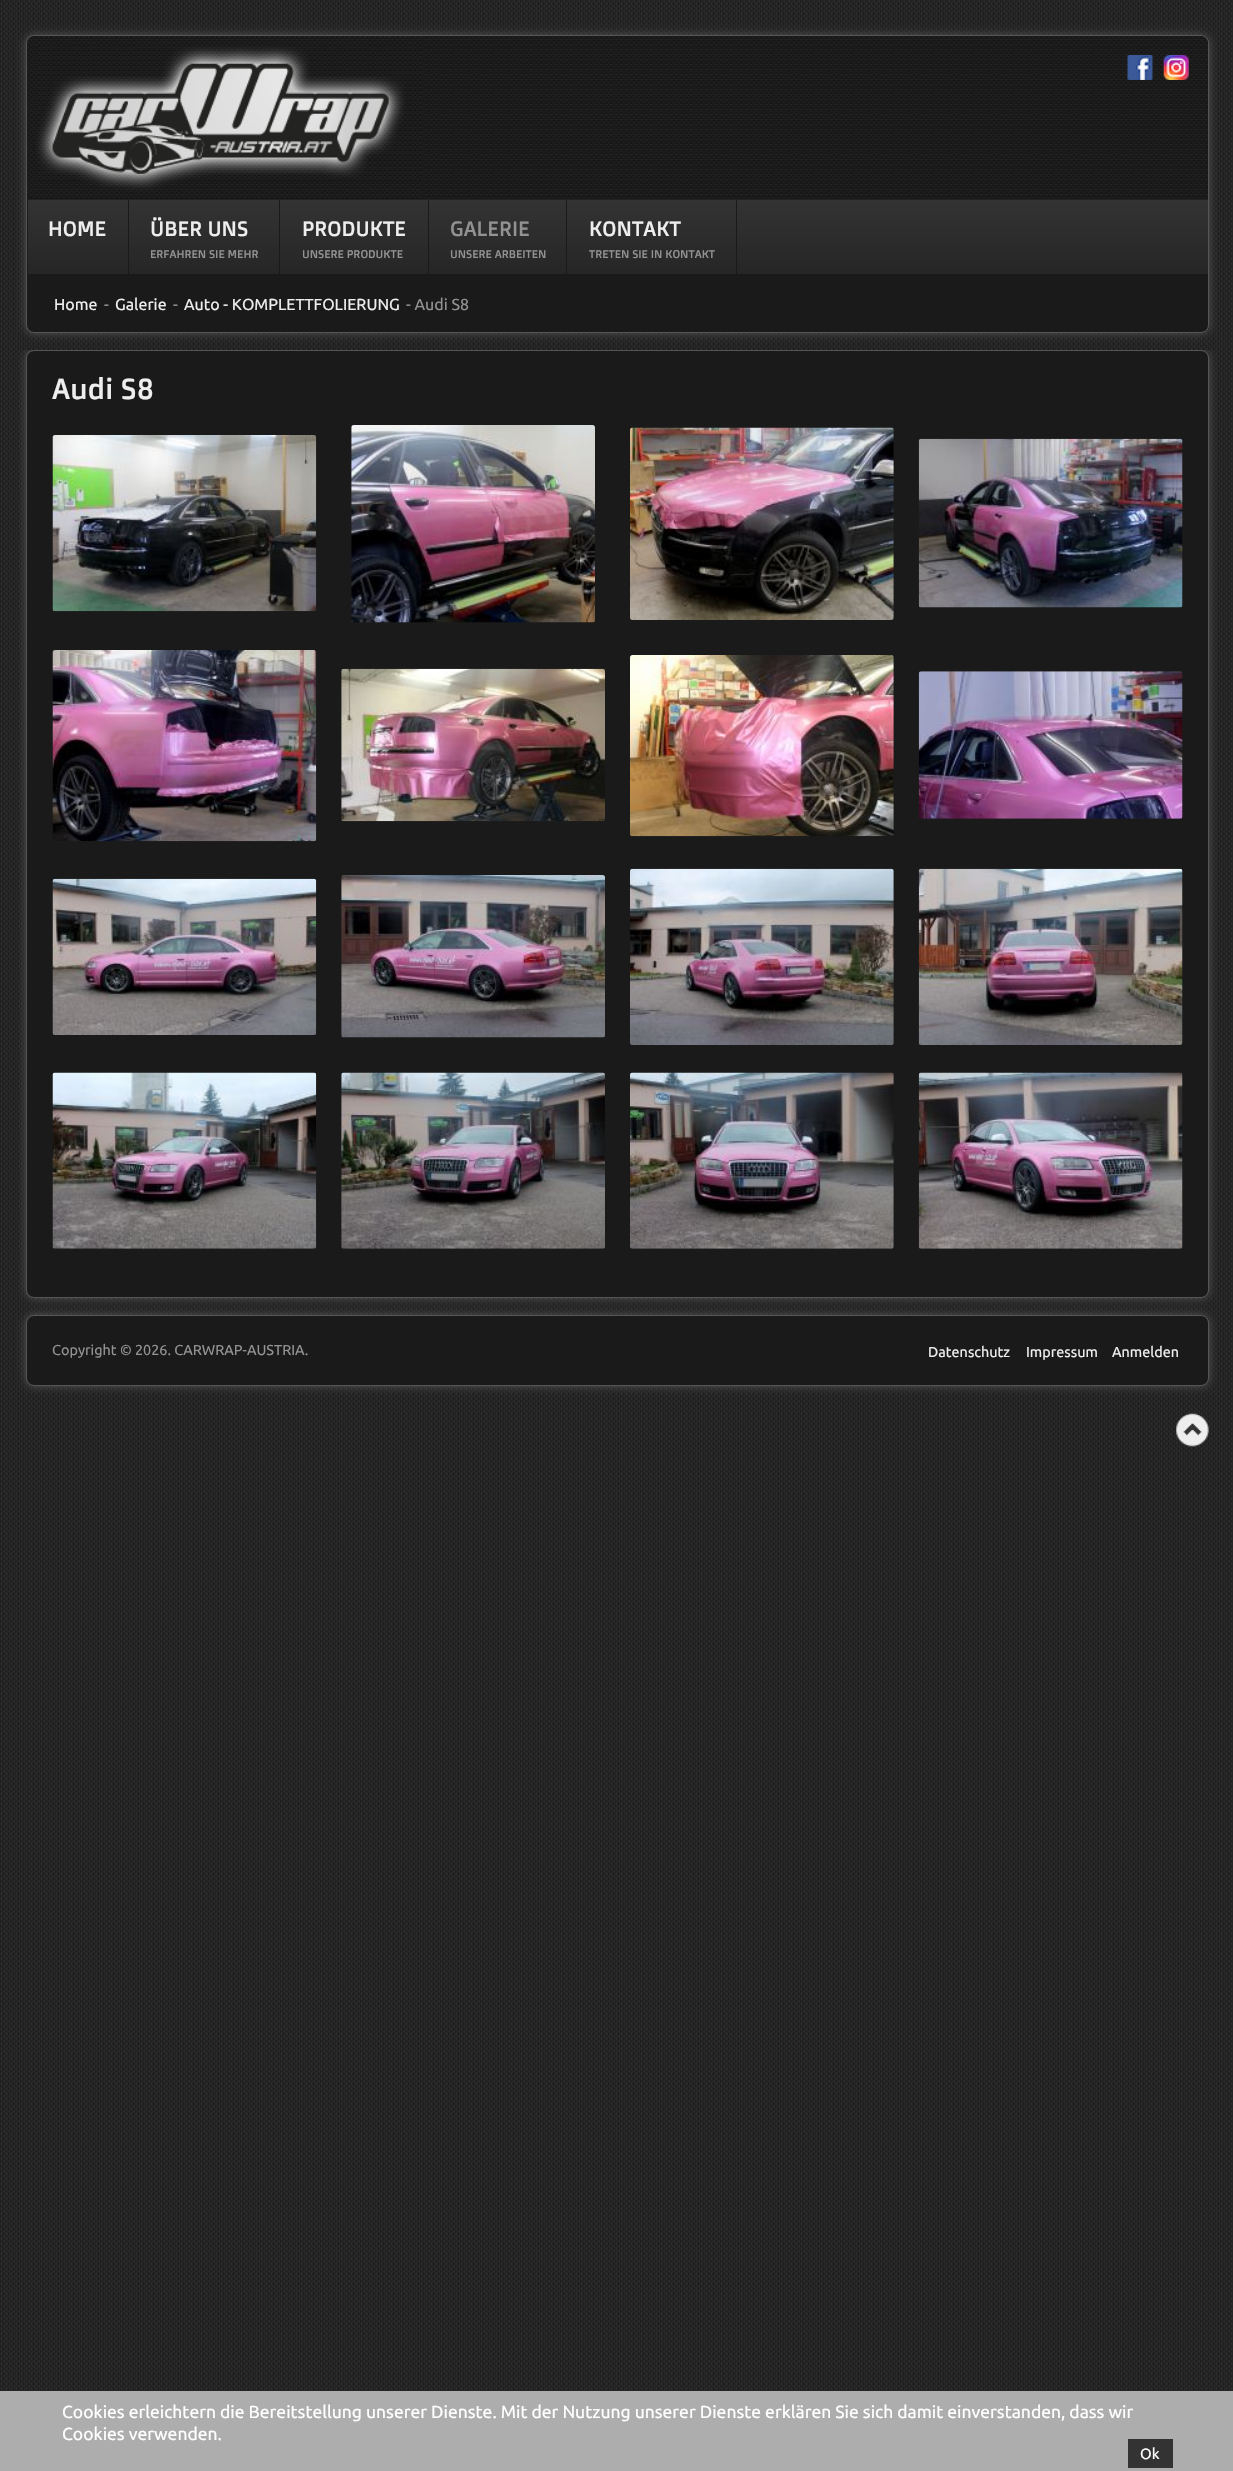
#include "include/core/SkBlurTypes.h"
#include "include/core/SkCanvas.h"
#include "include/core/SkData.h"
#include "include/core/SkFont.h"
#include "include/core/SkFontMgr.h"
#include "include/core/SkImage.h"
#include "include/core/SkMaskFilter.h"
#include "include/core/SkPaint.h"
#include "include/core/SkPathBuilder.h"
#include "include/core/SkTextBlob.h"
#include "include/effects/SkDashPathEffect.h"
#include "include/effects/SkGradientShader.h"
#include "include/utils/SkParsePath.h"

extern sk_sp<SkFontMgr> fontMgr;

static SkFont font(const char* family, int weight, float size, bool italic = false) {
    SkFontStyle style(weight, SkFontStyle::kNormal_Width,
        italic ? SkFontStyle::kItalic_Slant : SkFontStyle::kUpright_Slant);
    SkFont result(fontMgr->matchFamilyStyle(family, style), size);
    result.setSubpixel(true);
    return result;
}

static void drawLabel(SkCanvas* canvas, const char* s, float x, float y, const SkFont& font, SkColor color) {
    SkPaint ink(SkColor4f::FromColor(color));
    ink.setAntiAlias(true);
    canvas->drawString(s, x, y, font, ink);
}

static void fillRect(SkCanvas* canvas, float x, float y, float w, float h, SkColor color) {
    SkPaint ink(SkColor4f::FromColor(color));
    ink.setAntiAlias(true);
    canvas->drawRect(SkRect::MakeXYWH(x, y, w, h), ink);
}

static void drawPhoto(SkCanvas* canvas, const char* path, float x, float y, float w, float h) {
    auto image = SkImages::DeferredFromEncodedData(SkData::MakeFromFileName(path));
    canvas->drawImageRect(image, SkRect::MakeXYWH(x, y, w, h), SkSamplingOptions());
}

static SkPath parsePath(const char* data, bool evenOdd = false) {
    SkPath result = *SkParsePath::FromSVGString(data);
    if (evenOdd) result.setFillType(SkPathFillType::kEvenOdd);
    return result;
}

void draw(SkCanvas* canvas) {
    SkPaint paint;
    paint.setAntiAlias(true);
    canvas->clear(0xFFFFFFFF);
    drawPhoto(canvas, "assets/img1.png", 0, 0, 1233, 2391);
    paint.setColor(0xFF555555);
    paint.setMaskFilter(SkMaskFilter::MakeBlur(kNormal_SkBlurStyle, 5));
    canvas->drawRoundRect(SkRect::MakeXYWH(26, 35, 1183, 298), 8, 8, paint);
    paint.setMaskFilter(nullptr);
    paint.setColor(0xFF1A1A1A);
    canvas->drawRoundRect(SkRect::MakeXYWH(26.5f, 35.5f, 1182, 297), 7.5f, 7.5f, paint);
    paint.setStroke(true);
    paint.setStrokeWidth(1);
    paint.setColor(0xFF555555);
    canvas->drawRoundRect(SkRect::MakeXYWH(26.5f, 35.5f, 1182, 297), 7.5f, 7.5f, paint);
    paint.setStroke(false);
    paint.setColor(0xFF1A1A1A);
    canvas->drawPath(parsePath("M36 36H1200C1204.5 36 1208 39.5 1208 44V199H28V44C28 39.5 31.5 36 36 36Z"), paint);
    drawPhoto(canvas, "assets/img2.png", 28, 37, 1179, 159);
    drawPhoto(canvas, "assets/img3.png", 30, 36, 392, 163);
    drawPhoto(canvas, "assets/img4.png", 1127, 55, 26, 25);
    drawPhoto(canvas, "assets/img5.png", 1163, 55, 26, 25);
    {
        const SkColor colors[] = {0xFF333333, 0xFF262626};
        const float stops[] = {0, 1};
        const SkPoint ends[] = {{28, 200}, {28, 274}};
        paint.setShader(SkGradientShader::MakeLinear(ends, colors, stops, 2, SkTileMode::kClamp));
        paint.setAlpha(255);
    }
    canvas->drawRect(SkRect::MakeXYWH(28, 200, 1180, 74), paint);
    fillRect(canvas, 28, 199, 1180, 1, 0xFF222222);
    fillRect(canvas, 128, 200, 1, 74, 0xFF1A1A1A);
    SkFont font1 = font("Doppio One", 400, 20.75f);
    drawLabel(canvas, "HOME", 48, 236, font1, 0xFFEEEEEE);
    fillRect(canvas, 279, 200, 1, 74, 0xFF1A1A1A);
    drawLabel(canvas, "ÜBER UNS", 150, 236, font1, 0xFFEEEEEE);
    SkFont font2 = font("Doppio One", 400, 11.25f);
    drawLabel(canvas, "ERFAHREN SIE MEHR", 150, 258, font2, 0xFF929292);
    fillRect(canvas, 428, 200, 1, 74, 0xFF1A1A1A);
    drawLabel(canvas, "PRODUKTE", 302, 236, font1, 0xFFEEEEEE);
    drawLabel(canvas, "UNSERE PRODUKTE", 302, 258, font2, 0xFF929292);
    fillRect(canvas, 566, 200, 1, 74, 0xFF1A1A1A);
    drawLabel(canvas, "GALERIE", 450, 236, font1, 0xFF929292);
    drawLabel(canvas, "UNSERE ARBEITEN", 450, 258, font2, 0xFF929292);
    fillRect(canvas, 736, 200, 1, 74, 0xFF1A1A1A);
    drawLabel(canvas, "KONTAKT", 589, 236, font1, 0xFFEEEEEE);
    drawLabel(canvas, "TRETEN SIE IN KONTAKT", 589, 258, font2, 0xFF929292);
    SkFont font3 = font("Ubuntu", 400, 16);
    drawLabel(canvas, "Home", 54, 310, font3, 0xFFEEEEEE);
    drawLabel(canvas, "-", 104, 310, font3, 0xFF929292);
    drawLabel(canvas, "Galerie", 115, 310, font3, 0xFFEEEEEE);
    drawLabel(canvas, "-", 173, 310, font3, 0xFF929292);
    drawLabel(canvas, "Auto - KOMPLETTFOLIERUNG", 184, 310, font3, 0xFFEEEEEE);
    drawLabel(canvas, "- Audi S8", 406, 310, font3, 0xFF929292);
    canvas->save();
    canvas->clipRect(SkRect::MakeXYWH(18, 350, 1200, 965));
    paint.setShader(nullptr);
    paint.setColor(0xFF555555);
    paint.setMaskFilter(SkMaskFilter::MakeBlur(kNormal_SkBlurStyle, 5));
    canvas->drawRoundRect(SkRect::MakeXYWH(26, 350, 1183, 948), 8, 8, paint);
    paint.setMaskFilter(nullptr);
    canvas->restore();
    paint.setColor(0xFF1A1A1A);
    canvas->drawRoundRect(SkRect::MakeXYWH(26.5f, 350.5f, 1182, 947), 7.5f, 7.5f, paint);
    paint.setStroke(true);
    paint.setColor(0xFF555555);
    canvas->drawRoundRect(SkRect::MakeXYWH(26.5f, 350.5f, 1182, 947), 7.5f, 7.5f, paint);
    SkFont font4 = font("Doppio One", 400, 29);
    drawLabel(canvas, "Audi S8", 52, 399, font4, 0xFFEEEEEE);
    drawPhoto(canvas, "assets/img6.png", 52, 435, 265, 177);
    drawPhoto(canvas, "assets/img7.png", 351, 425, 244, 198);
    drawPhoto(canvas, "assets/img8.png", 630, 427, 264, 193);
    drawPhoto(canvas, "assets/img9.png", 918, 438, 265, 170);
    drawPhoto(canvas, "assets/img10.png", 52, 650, 265, 192);
    drawPhoto(canvas, "assets/img11.png", 341, 668, 264, 154);
    drawPhoto(canvas, "assets/img12.png", 630, 655, 264, 182);
    drawPhoto(canvas, "assets/img13.png", 918, 671, 265, 148);
    drawPhoto(canvas, "assets/img14.png", 52, 878, 265, 157);
    drawPhoto(canvas, "assets/img15.png", 341, 875, 264, 163);
    drawPhoto(canvas, "assets/img16.png", 630, 868, 264, 177);
    drawPhoto(canvas, "assets/img17.png", 918, 868, 265, 177);
    drawPhoto(canvas, "assets/img18.png", 52, 1072, 265, 177);
    drawPhoto(canvas, "assets/img19.png", 341, 1072, 264, 177);
    drawPhoto(canvas, "assets/img20.png", 630, 1072, 264, 177);
    drawPhoto(canvas, "assets/img21.png", 918, 1072, 265, 177);
    paint.setStroke(false);
    paint.setMaskFilter(SkMaskFilter::MakeBlur(kNormal_SkBlurStyle, 5));
    canvas->drawRoundRect(SkRect::MakeXYWH(26, 1315, 1183, 71), 8, 8, paint);
    paint.setMaskFilter(nullptr);
    paint.setColor(0xFF1A1A1A);
    canvas->drawRoundRect(SkRect::MakeXYWH(26.5f, 1315.5f, 1182, 70), 7.5f, 7.5f, paint);
    paint.setStroke(true);
    paint.setColor(0xFF555555);
    canvas->drawRoundRect(SkRect::MakeXYWH(26.5f, 1315.5f, 1182, 70), 7.5f, 7.5f, paint);
    SkFont font5 = font("Ubuntu", 400, 14.4f);
    drawLabel(canvas, "Copyright © 2026. CARWRAP-AUSTRIA.", 52, 1355, font5, 0xFF929292);
    drawLabel(canvas, "Datenschutz", 928, 1357, font5, 0xFFEEEEEE);
    drawLabel(canvas, "Impressum", 1026, 1357, font5, 0xFFEEEEEE);
    drawLabel(canvas, "Anmelden", 1112, 1357, font5, 0xFFEEEEEE);
    drawPhoto(canvas, "assets/img22.png", 1176, 1413, 33, 34);
    fillRect(canvas, 0, 2391, 1233, 80, 0xFFADADAD);
    SkFont font6 = font("Ubuntu", 400, 17.5f);
    drawLabel(canvas, "Cookies erleichtern die Bereitstellung unserer Dienste. Mit der Nutzung unserer Dienste erklären Sie sich damit einverstanden, dass wir", 62, 2418, font6, 0xFFFFFFFF);
    drawLabel(canvas, "Cookies verwenden.", 62, 2440, font6, 0xFFFFFFFF);
    fillRect(canvas, 1128, 2439, 45, 29, 0xFF333333);
    SkFont font7 = font("Ubuntu", 400, 15);
    drawLabel(canvas, "Ok", 1140, 2459, font7, 0xFFFFFFFF);
}
